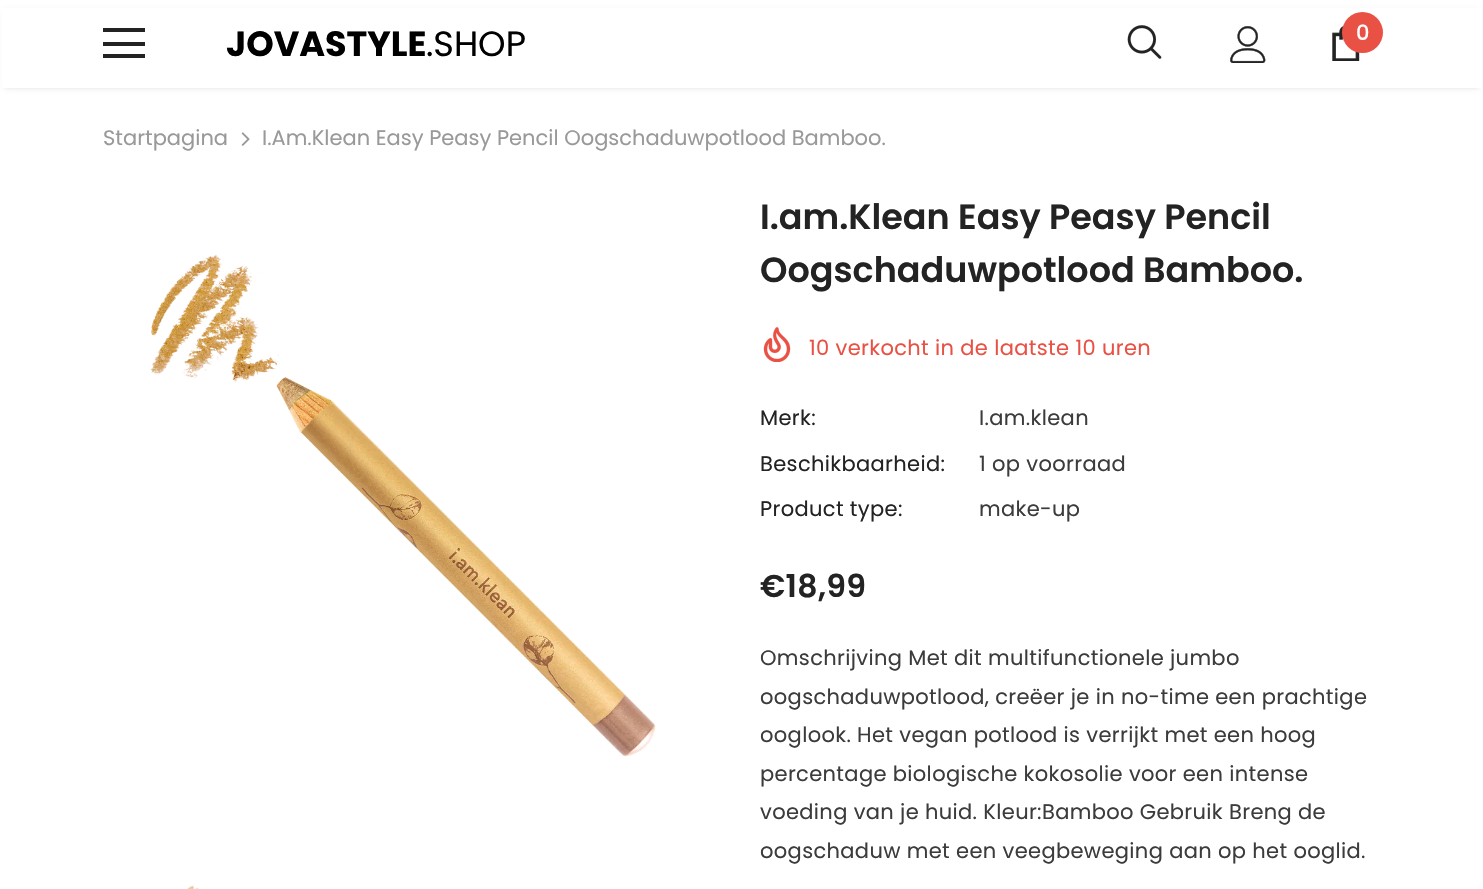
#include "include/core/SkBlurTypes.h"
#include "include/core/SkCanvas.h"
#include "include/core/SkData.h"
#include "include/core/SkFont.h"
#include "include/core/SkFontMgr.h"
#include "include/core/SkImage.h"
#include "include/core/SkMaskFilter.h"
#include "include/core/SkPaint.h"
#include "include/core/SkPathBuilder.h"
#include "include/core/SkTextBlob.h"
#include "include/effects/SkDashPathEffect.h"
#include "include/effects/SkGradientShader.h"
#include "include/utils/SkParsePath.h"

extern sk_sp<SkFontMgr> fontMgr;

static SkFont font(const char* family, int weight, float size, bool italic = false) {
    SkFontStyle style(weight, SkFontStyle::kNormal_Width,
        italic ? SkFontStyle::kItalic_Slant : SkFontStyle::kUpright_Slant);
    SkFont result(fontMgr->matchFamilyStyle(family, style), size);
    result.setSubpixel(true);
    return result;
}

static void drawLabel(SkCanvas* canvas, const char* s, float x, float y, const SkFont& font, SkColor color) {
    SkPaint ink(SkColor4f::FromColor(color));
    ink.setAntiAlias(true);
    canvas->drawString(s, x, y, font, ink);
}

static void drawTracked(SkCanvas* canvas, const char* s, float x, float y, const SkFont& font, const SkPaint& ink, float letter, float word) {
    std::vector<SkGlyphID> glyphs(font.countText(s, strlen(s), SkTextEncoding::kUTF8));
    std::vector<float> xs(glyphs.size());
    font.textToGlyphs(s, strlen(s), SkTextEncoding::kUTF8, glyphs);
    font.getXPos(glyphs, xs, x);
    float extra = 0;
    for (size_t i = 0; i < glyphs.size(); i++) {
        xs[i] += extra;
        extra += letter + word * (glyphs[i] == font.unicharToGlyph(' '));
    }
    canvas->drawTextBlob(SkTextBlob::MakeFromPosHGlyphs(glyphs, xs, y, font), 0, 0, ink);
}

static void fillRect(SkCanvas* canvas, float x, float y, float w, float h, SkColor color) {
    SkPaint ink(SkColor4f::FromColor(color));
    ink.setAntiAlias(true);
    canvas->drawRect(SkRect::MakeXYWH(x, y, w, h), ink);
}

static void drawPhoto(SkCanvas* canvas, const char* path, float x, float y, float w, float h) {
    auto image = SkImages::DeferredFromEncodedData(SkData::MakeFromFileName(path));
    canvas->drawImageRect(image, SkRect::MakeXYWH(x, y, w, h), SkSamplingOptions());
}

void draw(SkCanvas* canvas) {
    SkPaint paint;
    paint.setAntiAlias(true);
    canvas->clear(0xFFFFFFFF);
    paint.setColor(0x1F000000);
    paint.setMaskFilter(SkMaskFilter::MakeBlur(kNormal_SkBlurStyle, 2.5f));
    canvas->drawRect(SkRect::MakeXYWH(5, 11, 1474, 77), paint);
    paint.setMaskFilter(nullptr);
    fillRect(canvas, 2, 8, 1480, 80, 0xFFFFFFFF);
    fillRect(canvas, 103, 28, 42, 4, 0xFF232323);
    fillRect(canvas, 103, 42, 42, 4, 0xFF232323);
    fillRect(canvas, 103, 54, 42, 4, 0xFF232323);
    SkFont font1 = font("Poppins", 700, 35);
    drawLabel(canvas, "JOVASTYLE", 226, 56, font1, 0xFF000000);
    SkFont font2 = font("Poppins", 400, 35);
    drawLabel(canvas, ".SHOP", 426, 56, font2, 0xFF000000);
    drawPhoto(canvas, "assets/img1.png", 1127, 25, 35, 34);
    drawPhoto(canvas, "assets/img2.png", 1230, 26, 36, 37);
    drawPhoto(canvas, "assets/img3.png", 1332, 26, 28, 35);
    paint.setColor(0xFFE95144);
    canvas->drawCircle(1362.5f, 32.5f, 20.5f, paint);
    SkFont font3 = font("Poppins", 500, 21);
    drawLabel(canvas, "0", 1356, 40, font3, 0xFFFFFFFF);
    SkFont font4 = font("Poppins", 400, 21);
    drawLabel(canvas, "Startpagina", 103, 145, font4, 0xFF999999);
    drawPhoto(canvas, "assets/img4.png", 241, 132, 9, 14);
    drawLabel(canvas, "I.Am.Klean Easy Peasy Pencil Oogschaduwpotlood Bamboo.", 262, 145, font4, 0xFF999999);
    drawPhoto(canvas, "assets/img5.png", 151, 255, 505, 502);
    drawPhoto(canvas, "assets/img6.png", 187, 885, 12, 4);
    SkFont font5 = font("Poppins", 600, 35);
    drawLabel(canvas, "I.am.Klean Easy Peasy Pencil", 760, 229, font5, 0xFF232323);
    drawLabel(canvas, "Oogschaduwpotlood Bamboo.", 760, 282, font5, 0xFF232323);
    drawPhoto(canvas, "assets/img7.png", 763, 327, 28, 35);
    drawTracked(canvas, "10 verkocht in de laatste 10 uren", 809, 355, font4, paint, 0.35f, 0);
    paint.setColor(0xFF232323);
    drawTracked(canvas, "Merk:", 760, 425, font4, paint, 0.35f, 0);
    paint.setColor(0xFF3C3C3C);
    drawTracked(canvas, "I.am.klean", 979, 425, font4, paint, 0.35f, 0);
    paint.setColor(0xFF232323);
    drawTracked(canvas, "Beschikbaarheid:", 760, 471, font4, paint, 0.35f, 0);
    paint.setColor(0xFF3C3C3C);
    drawTracked(canvas, "1 op voorraad", 979, 471, font4, paint, 0.35f, 0);
    paint.setColor(0xFF232323);
    drawTracked(canvas, "Product type:", 760, 516, font4, paint, 0.35f, 0);
    paint.setColor(0xFF3C3C3C);
    drawTracked(canvas, "make-up", 979, 516, font4, paint, 0.35f, 0);
    SkFont font6 = font("Poppins", 600, 31.5f);
    paint.setColor(0xFF232323);
    drawTracked(canvas, "€18,99", 760, 597, font6, paint, 0.35f, 0);
    paint.setColor(0xFF3C3C3C);
    drawTracked(canvas, "Omschrijving Met dit multifunctionele jumbo", 760, 665, font4, paint, 0.35f, 0);
    drawTracked(canvas, "oogschaduwpotlood, creëer je in no-time een prachtige", 760, 704, font4, paint, 0.35f, 0);
    drawTracked(canvas, "ooglook. Het vegan potlood is verrijkt met een hoog", 760, 742, font4, paint, 0.35f, 0);
    drawTracked(canvas, "percentage biologische kokosolie voor een intense", 760, 781, font4, paint, 0.35f, 0);
    drawTracked(canvas, "voeding van je huid. Kleur:Bamboo Gebruik Breng de", 760, 819, font4, paint, 0.35f, 0);
    drawTracked(canvas, "oogschaduw met een veegbeweging aan op het ooglid.", 760, 858, font4, paint, 0.35f, 0);
}
